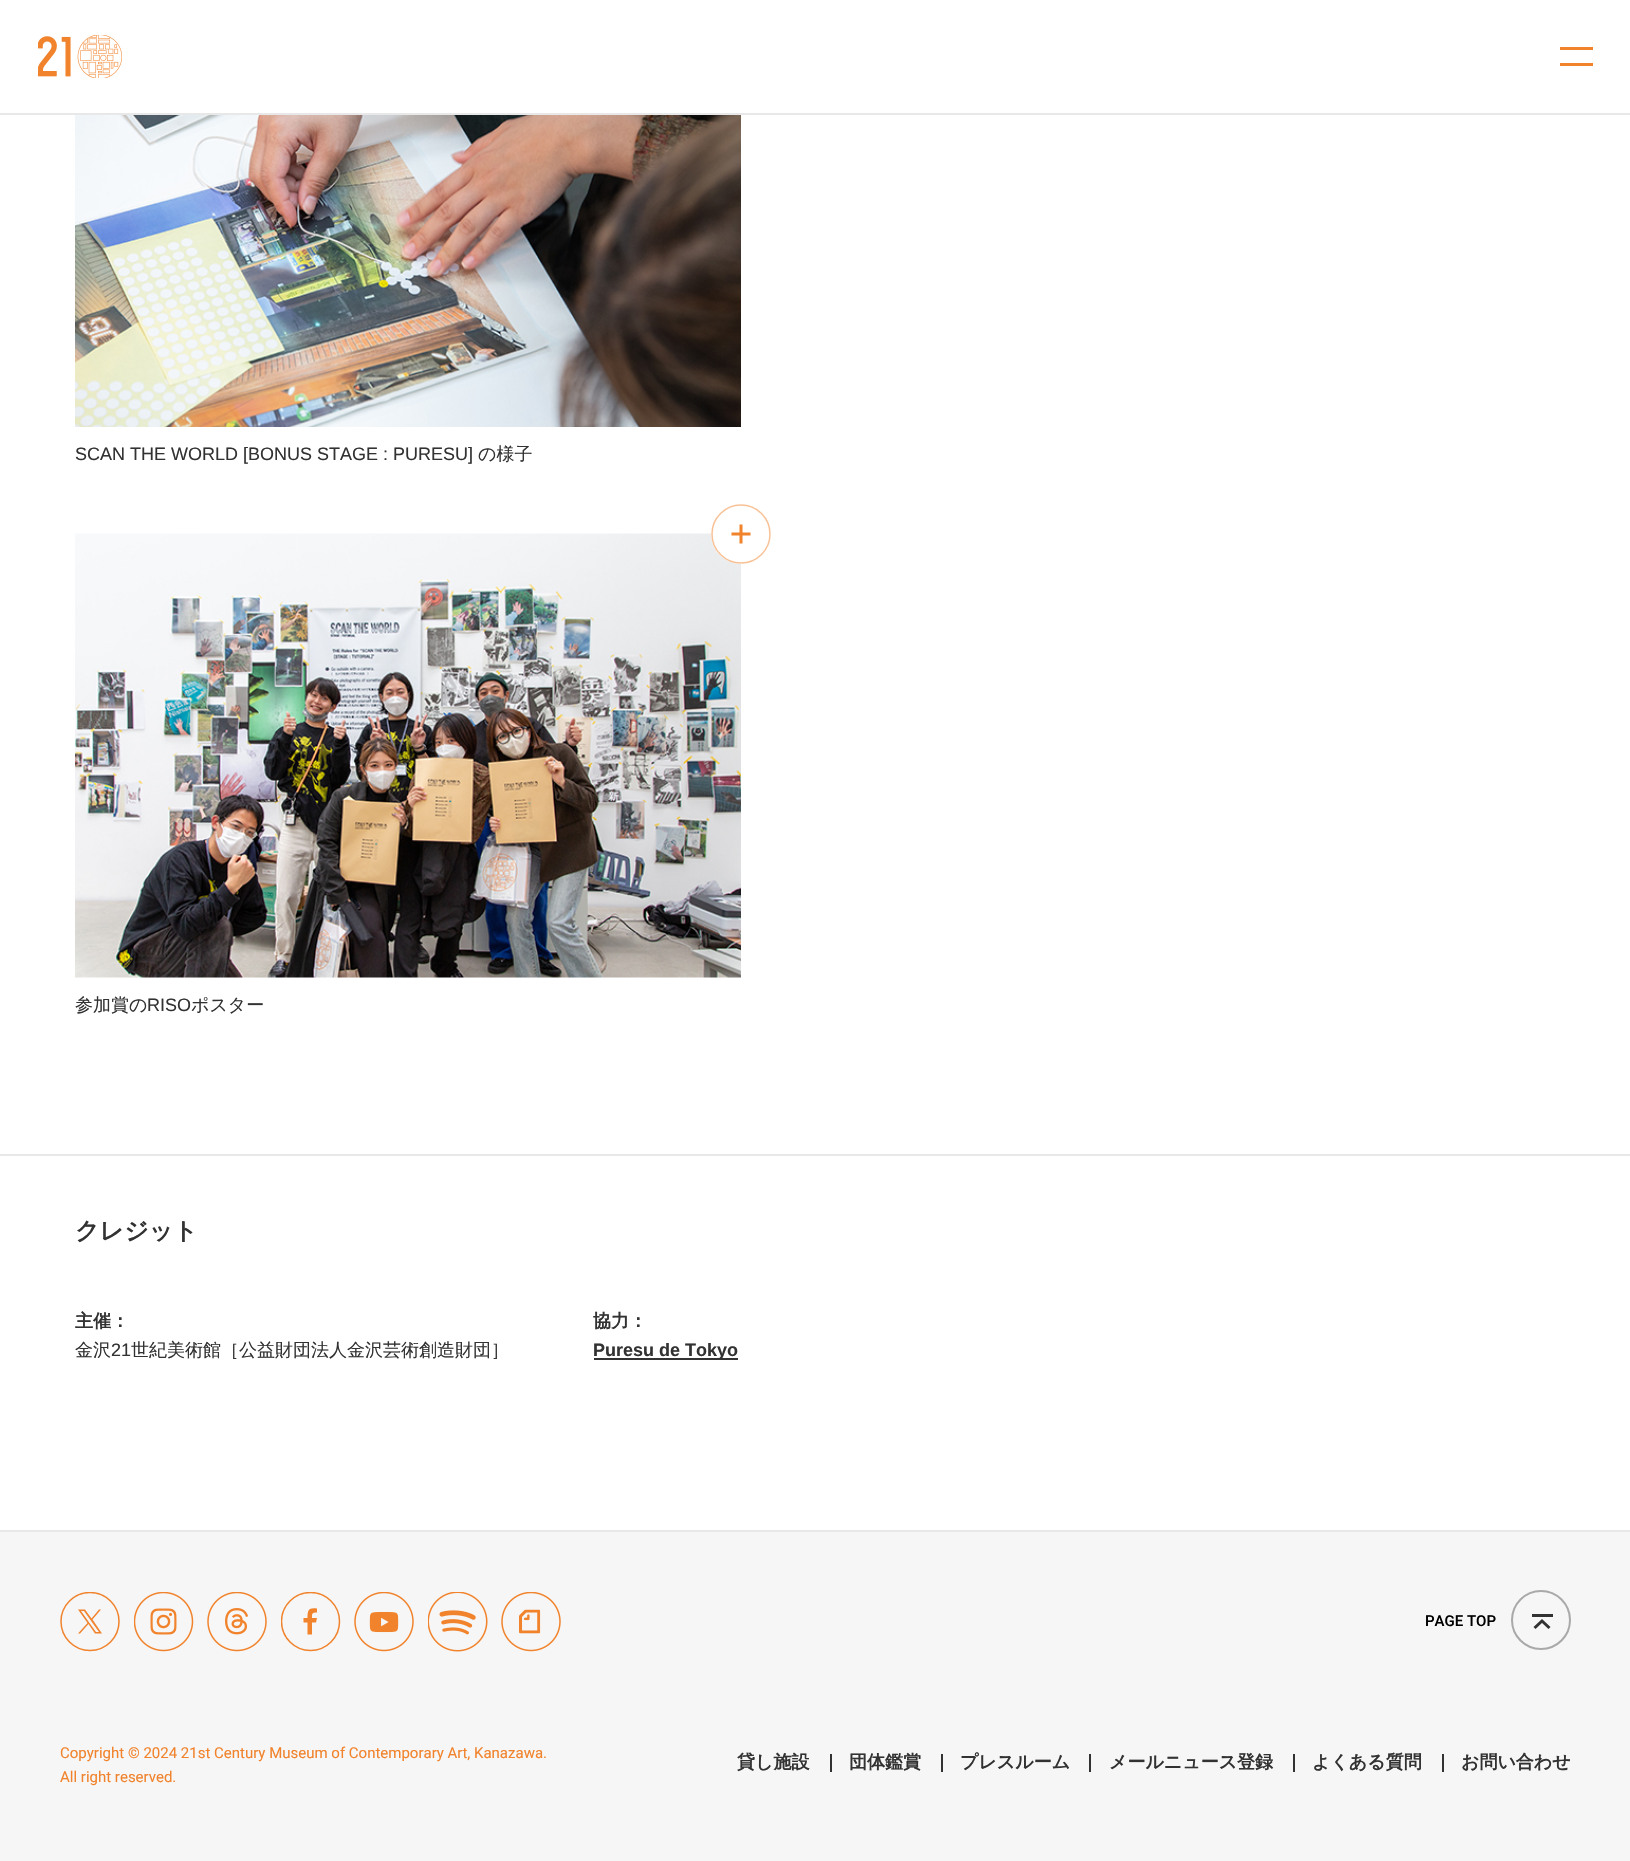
#include "include/core/SkBlurTypes.h"
#include "include/core/SkCanvas.h"
#include "include/core/SkData.h"
#include "include/core/SkFont.h"
#include "include/core/SkFontMgr.h"
#include "include/core/SkImage.h"
#include "include/core/SkMaskFilter.h"
#include "include/core/SkPaint.h"
#include "include/core/SkPathBuilder.h"
#include "include/core/SkTextBlob.h"
#include "include/effects/SkDashPathEffect.h"
#include "include/effects/SkGradientShader.h"
#include "include/utils/SkParsePath.h"

extern sk_sp<SkFontMgr> fontMgr;

static SkFont font(const char* family, int weight, float size, bool italic = false) {
    SkFontStyle style(weight, SkFontStyle::kNormal_Width,
        italic ? SkFontStyle::kItalic_Slant : SkFontStyle::kUpright_Slant);
    SkFont result(fontMgr->matchFamilyStyle(family, style), size);
    result.setSubpixel(true);
    return result;
}

static void drawLabel(SkCanvas* canvas, const char* s, float x, float y, const SkFont& font, SkColor color) {
    SkPaint ink(SkColor4f::FromColor(color));
    ink.setAntiAlias(true);
    canvas->drawString(s, x, y, font, ink);
}

static void fillRect(SkCanvas* canvas, float x, float y, float w, float h, SkColor color) {
    SkPaint ink(SkColor4f::FromColor(color));
    ink.setAntiAlias(true);
    canvas->drawRect(SkRect::MakeXYWH(x, y, w, h), ink);
}

static void drawPhoto(SkCanvas* canvas, const char* path, float x, float y, float w, float h) {
    auto image = SkImages::DeferredFromEncodedData(SkData::MakeFromFileName(path));
    canvas->drawImageRect(image, SkRect::MakeXYWH(x, y, w, h), SkSamplingOptions());
}

static SkPath parsePath(const char* data, bool evenOdd = false) {
    SkPath result = *SkParsePath::FromSVGString(data);
    if (evenOdd) result.setFillType(SkPathFillType::kEvenOdd);
    return result;
}

void draw(SkCanvas* canvas) {
    SkPaint paint;
    paint.setAntiAlias(true);
    canvas->clear(0xFFFFFFFF);
    fillRect(canvas, 0, 113, 1630, 2, 0xFFE8E8E8);
    drawPhoto(canvas, "assets/img1.png", 38, 35, 84, 43);
    fillRect(canvas, 1560, 47, 33, 3, 0xFFF1832C);
    fillRect(canvas, 1560, 63, 33, 3, 0xFFF1832C);
    fillRect(canvas, 0, 1154, 1630, 2, 0xFFE8E8E8);
    drawPhoto(canvas, "assets/img2.png", 75, 115, 666, 312);
    SkFont font1 = font("Liberation Sans", 400, 18);
    drawLabel(canvas, "SCAN THE WORLD [BONUS STAGE : PURESU]", 75, 460, font1, 0xFF323232);
    SkFont font2 = font("WenQuanYi Zen Hei", 500, 18);
    drawLabel(canvas, "の様子", 478, 460, font2, 0xFF323232);
    drawPhoto(canvas, "assets/img3.png", 75, 533, 666, 445);
    paint.setColor(0xFFFFFFFF);
    canvas->drawCircle(741, 534, 30, paint);
    paint.setStroke(true);
    paint.setStrokeWidth(1.5f);
    paint.setColor(0x80F1832C);
    canvas->drawCircle(741, 534, 29, paint);
    paint.setStrokeWidth(3);
    paint.setStrokeCap(SkPaint::kSquare_Cap);
    paint.setColor(0xFFF1832C);
    canvas->drawPath(parsePath("M733 534H749M741 542V526"), paint);
    drawLabel(canvas, "参加賞の", 75, 1011, font2, 0xFF323232);
    drawLabel(canvas, "RISO", 147, 1011, font1, 0xFF323232);
    drawLabel(canvas, "ポスター", 191, 1011, font2, 0xFF323232);
    fillRect(canvas, 0, 1530, 1630, 2, 0xFFE8E8E8);
    SkFont font3 = font("WenQuanYi Zen Hei", 700, 24);
    drawLabel(canvas, "クレジット", 75, 1239, font3, 0xFF323232);
    SkFont font4 = font("WenQuanYi Zen Hei", 700, 18);
    drawLabel(canvas, "主催：", 75, 1327, font4, 0xFF323232);
    drawLabel(canvas, "金沢", 75, 1356, font2, 0xFF323232);
    drawLabel(canvas, "21", 111, 1356, font1, 0xFF323232);
    drawLabel(canvas, "世紀美術館［公益財団法人金沢芸術創造財団］", 131, 1356, font2, 0xFF323232);
    drawLabel(canvas, "協力：", 593, 1327, font4, 0xFF323232);
    fillRect(canvas, 594, 1358, 144, 2, 0xFF323232);
    SkFont font5 = font("Liberation Sans", 700, 18);
    drawLabel(canvas, "Puresu de Tokyo", 593, 1356, font5, 0xFF323232);
    fillRect(canvas, 0, 1532, 1630, 329, 0xFFF6F6F6);
    canvas->save();
    canvas->clipRect(SkRect::MakeXYWH(60, 1592, 60, 60));
    paint.setStrokeWidth(1.5f);
    paint.setStrokeCap(SkPaint::kButt_Cap);
    canvas->drawCircle(90, 1621.5f, 29, paint);
    canvas->restore();
    paint.setStroke(false);
    canvas->drawPath(parsePath("M92.5 1619.5L101 1609.5H99L91.5 1618.5L85 1609.5H78L87.5 1623L78 1633.5H80L88.5 1624L95 1633.5H102ZM89.5 1623L81 1611H84L99 1632H96Z"), paint);
    drawPhoto(canvas, "assets/img4.png", 134, 1592, 60, 60);
    drawPhoto(canvas, "assets/img5.png", 207, 1592, 60, 60);
    canvas->save();
    canvas->clipRect(SkRect::MakeXYWH(281, 1592, 60, 60));
    paint.setStroke(true);
    canvas->drawCircle(310.5f, 1621.5f, 29, paint);
    canvas->restore();
    paint.setStroke(false);
    canvas->drawPath(parsePath("M312 1634.5V1622.5H316L317 1618H312C312 1613 312 1612.5 317 1612.5V1608.5C308.5 1607.5 307.5 1610 307.5 1618H303.5V1622.5H307.5V1634.5Z"), paint);
    drawPhoto(canvas, "assets/img6.png", 354, 1592, 60, 60);
    drawPhoto(canvas, "assets/img7.png", 428, 1592, 60, 60);
    drawPhoto(canvas, "assets/img8.png", 501, 1592, 60, 60);
    paint.setStroke(true);
    paint.setStrokeWidth(2);
    paint.setColor(0xFFA9A9A9);
    canvas->drawCircle(1541, 1620, 29, paint);
    SkFont font6 = font("Roboto", 500, 15);
    drawLabel(canvas, "PAGE TOP", 1425, 1626, font6, 0xFF000000);
    paint.setStrokeWidth(3);
    paint.setColor(0xFF323232);
    canvas->drawPath(parsePath("M1534.5 1628L1542 1621L1549.5 1628"), paint);
    fillRect(canvas, 1532, 1614, 21, 3, 0xFF323232);
    SkFont font7 = font("Roboto", 400, 15);
    drawLabel(canvas, "Copyright © 2024 21st Century Museum of Contemporary Art, Kanazawa.", 60, 1758, font7, 0xFFF1832C);
    drawLabel(canvas, "All right reserved.", 60, 1782, font7, 0xFFF1832C);
    drawLabel(canvas, "貸し施設", 737, 1768, font4, 0xFF323232);
    fillRect(canvas, 830, 1754, 2, 18, 0xFF323232);
    drawLabel(canvas, "団体鑑賞", 849, 1768, font4, 0xFF323232);
    fillRect(canvas, 941, 1754, 2, 18, 0xFF323232);
    drawLabel(canvas, "プレスルーム", 960, 1768, font4, 0xFF323232);
    fillRect(canvas, 1089, 1754, 2, 18, 0xFF323232);
    drawLabel(canvas, "メールニュース登録", 1109, 1768, font4, 0xFF323232);
    fillRect(canvas, 1293, 1754, 2, 18, 0xFF323232);
    drawLabel(canvas, "よくある質問", 1312, 1768, font4, 0xFF323232);
    fillRect(canvas, 1442, 1754, 2, 18, 0xFF323232);
    drawLabel(canvas, "お問い合わせ", 1461, 1768, font4, 0xFF323232);
}
